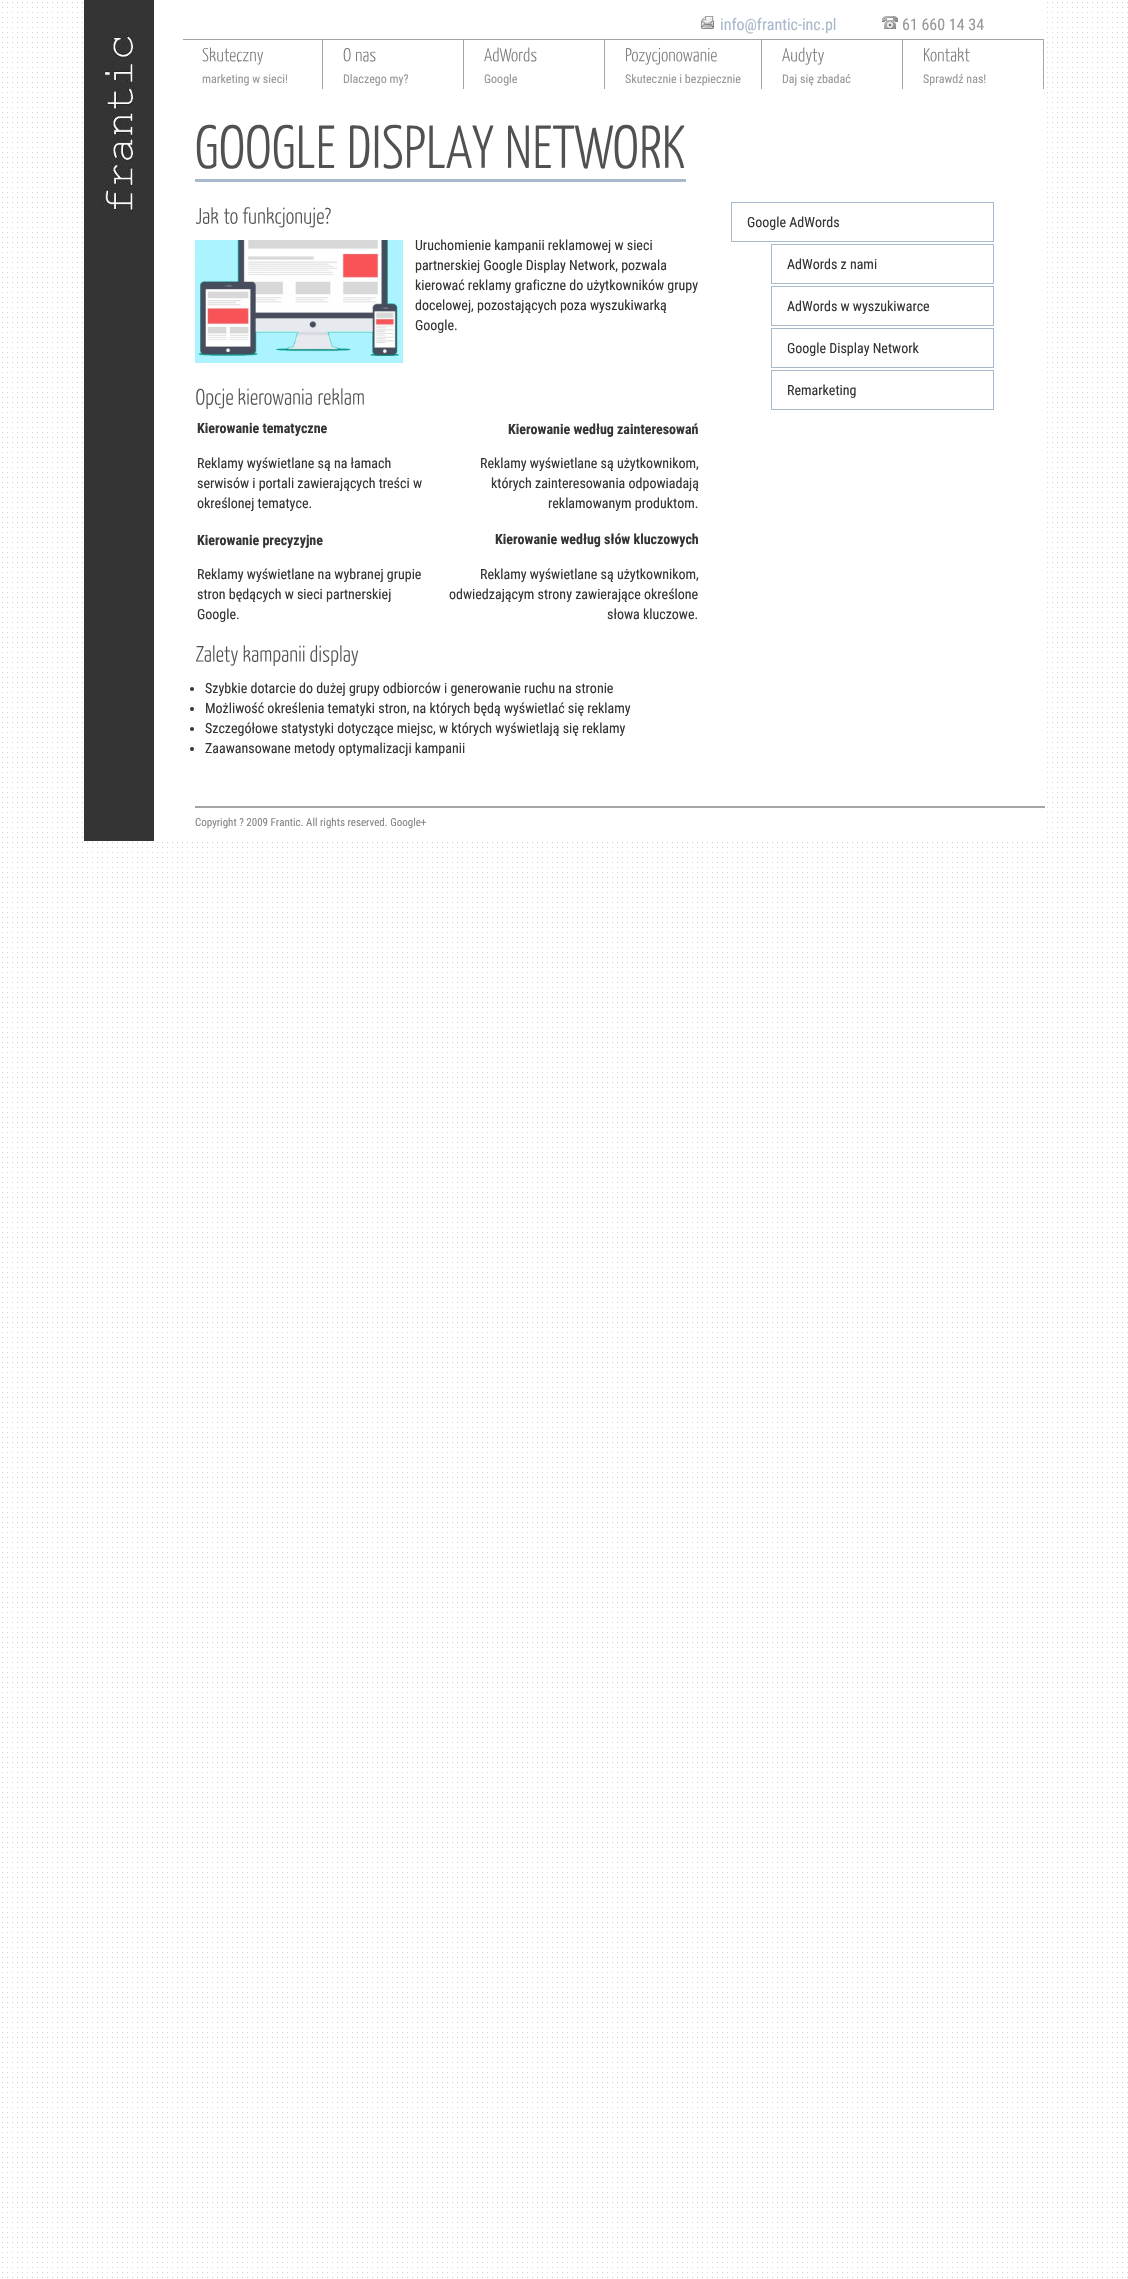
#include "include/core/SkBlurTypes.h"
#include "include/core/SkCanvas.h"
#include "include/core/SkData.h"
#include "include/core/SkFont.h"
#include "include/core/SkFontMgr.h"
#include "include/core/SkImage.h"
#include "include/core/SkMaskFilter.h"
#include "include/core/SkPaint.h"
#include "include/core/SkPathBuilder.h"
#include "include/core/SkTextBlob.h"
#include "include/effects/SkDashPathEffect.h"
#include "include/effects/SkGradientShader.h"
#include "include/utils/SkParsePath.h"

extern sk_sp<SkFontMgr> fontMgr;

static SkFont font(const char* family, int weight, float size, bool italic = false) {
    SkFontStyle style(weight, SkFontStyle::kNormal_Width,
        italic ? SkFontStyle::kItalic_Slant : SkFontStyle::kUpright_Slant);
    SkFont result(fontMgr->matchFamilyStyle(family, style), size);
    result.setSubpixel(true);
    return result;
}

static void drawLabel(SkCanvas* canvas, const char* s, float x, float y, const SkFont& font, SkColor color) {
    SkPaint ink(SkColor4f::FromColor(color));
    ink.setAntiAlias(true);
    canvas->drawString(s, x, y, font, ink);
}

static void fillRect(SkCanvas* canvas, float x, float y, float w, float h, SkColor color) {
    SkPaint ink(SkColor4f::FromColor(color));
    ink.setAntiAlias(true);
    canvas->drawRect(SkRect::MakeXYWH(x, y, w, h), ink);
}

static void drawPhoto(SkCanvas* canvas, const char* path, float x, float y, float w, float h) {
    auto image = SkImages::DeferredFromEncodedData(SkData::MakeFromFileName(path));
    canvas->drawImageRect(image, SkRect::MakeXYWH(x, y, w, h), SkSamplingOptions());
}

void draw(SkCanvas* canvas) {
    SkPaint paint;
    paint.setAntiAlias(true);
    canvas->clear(0xFFFFFFFF);
    drawPhoto(canvas, "assets/img1.png", 2, 2, 1126, 2276);
    drawPhoto(canvas, "assets/img2.png", 84, 0, 959, 841);
    drawPhoto(canvas, "assets/img3.png", 102, 31, 32, 184);
    drawPhoto(canvas, "assets/img4.png", 700, 16, 16, 14);
    SkFont font1 = font("Roboto Condensed", 400, 16);
    drawLabel(canvas, "info@frantic-inc.pl", 720, 30, font1, 0xFFA9B9CC);
    drawPhoto(canvas, "assets/img5.png", 882, 15, 16, 15);
    drawLabel(canvas, "61 660 14 34", 902, 30, font1, 0xFF989797);
    fillRect(canvas, 183, 39, 861, 1, 0xFFA5A5A5);
    fillRect(canvas, 322, 40, 1, 49, 0xFFA5A5A5);
    drawPhoto(canvas, "assets/img6.png", 202, 47, 61, 18);
    SkFont font2 = font("Roboto Condensed", 400, 12);
    drawLabel(canvas, "marketing w sieci!", 202, 83, font2, 0xFF989797);
    fillRect(canvas, 463, 40, 1, 49, 0xFFA5A5A5);
    drawPhoto(canvas, "assets/img7.png", 343, 48, 8, 14);
    drawPhoto(canvas, "assets/img8.png", 356, 51, 20, 11);
    drawLabel(canvas, "Dlaczego my?", 343, 83, font2, 0xFF989797);
    fillRect(canvas, 604, 40, 1, 49, 0xFFA5A5A5);
    drawPhoto(canvas, "assets/img9.png", 484, 47, 53, 15);
    drawLabel(canvas, "Google", 484, 83, font2, 0xFF989797);
    fillRect(canvas, 761, 40, 1, 49, 0xFFA5A5A5);
    drawPhoto(canvas, "assets/img10.png", 626, 47, 91, 18);
    drawLabel(canvas, "Skutecznie i bezpiecznie", 625, 83, font2, 0xFF989797);
    fillRect(canvas, 902, 40, 1, 49, 0xFFA5A5A5);
    drawPhoto(canvas, "assets/img11.png", 782, 47, 42, 18);
    drawLabel(canvas, "Daj się zbadać", 782, 83, font2, 0xFF989797);
    fillRect(canvas, 1043, 40, 1, 49, 0xFFA5A5A5);
    drawPhoto(canvas, "assets/img12.png", 924, 47, 46, 15);
    drawLabel(canvas, "Sprawdź nas!", 923, 83, font2, 0xFF989797);
    fillRect(canvas, 195, 179, 491, 3, 0xFFA9B9CC);
    drawPhoto(canvas, "assets/img13.png", 196, 124, 139, 45);
    drawPhoto(canvas, "assets/img14.png", 350, 124, 144, 45);
    drawPhoto(canvas, "assets/img15.png", 508, 124, 177, 45);
    drawPhoto(canvas, "assets/img16.png", 196, 207, 23, 17);
    drawPhoto(canvas, "assets/img17.png", 224, 208, 14, 16);
    drawPhoto(canvas, "assets/img18.png", 242, 207, 89, 21);
    drawPhoto(canvas, "assets/img19.png", 195, 240, 208, 123);
    SkFont font3 = font("Roboto Condensed", 400, 14);
    drawLabel(canvas, "Uruchomienie kampanii reklamowej w sieci", 415, 250, font3, 0xFF353535);
    drawLabel(canvas, "partnerskiej Google Display Network, pozwala", 415, 270, font3, 0xFF353535);
    drawLabel(canvas, "kierować reklamy graficzne do użytkowników grupy", 415, 290, font3, 0xFF353535);
    drawLabel(canvas, "docelowej, pozostających poza wyszukiwarką", 415, 310, font3, 0xFF353535);
    drawLabel(canvas, "Google.", 415, 330, font3, 0xFF353535);
    drawPhoto(canvas, "assets/img20.png", 196, 388, 37, 21);
    drawPhoto(canvas, "assets/img21.png", 238, 388, 74, 17);
    drawPhoto(canvas, "assets/img22.png", 318, 388, 46, 17);
    SkFont font4 = font("Roboto Condensed", 700, 14);
    drawLabel(canvas, "Kierowanie tematyczne", 197, 433, font4, 0xFF353535);
    drawLabel(canvas, "Reklamy wyświetlane są na łamach", 197, 468, font3, 0xFF353535);
    drawLabel(canvas, "serwisów i portali zawierających treści w", 197, 488, font3, 0xFF353535);
    drawLabel(canvas, "określonej tematyce.", 197, 508, font3, 0xFF353535);
    drawLabel(canvas, "Kierowanie według zainteresowań", 508, 434, font4, 0xFF353535);
    drawLabel(canvas, "Reklamy wyświetlane są użytkownikom,", 480, 468, font3, 0xFF353535);
    drawLabel(canvas, "których zainteresowania odpowiadają", 491, 488, font3, 0xFF353535);
    drawLabel(canvas, "reklamowanym produktom.", 548, 508, font3, 0xFF353535);
    drawLabel(canvas, "Kierowanie precyzyjne", 197, 545, font4, 0xFF353535);
    drawLabel(canvas, "Reklamy wyświetlane na wybranej grupie", 197, 579, font3, 0xFF353535);
    drawLabel(canvas, "stron będących w sieci partnerskiej", 197, 599, font3, 0xFF353535);
    drawLabel(canvas, "Google.", 197, 619, font3, 0xFF353535);
    drawLabel(canvas, "Kierowanie według słów kluczowych", 495, 544, font4, 0xFF353535);
    drawLabel(canvas, "Reklamy wyświetlane są użytkownikom,", 480, 579, font3, 0xFF353535);
    drawLabel(canvas, "odwiedzającym strony zawierające określone", 449, 599, font3, 0xFF353535);
    drawLabel(canvas, "słowa kluczowe.", 607, 619, font3, 0xFF353535);
    drawPhoto(canvas, "assets/img23.png", 196, 645, 42, 21);
    drawPhoto(canvas, "assets/img24.png", 243, 645, 62, 21);
    drawPhoto(canvas, "assets/img25.png", 310, 645, 49, 21);
    paint.setColor(0xFF353535);
    canvas->drawCircle(192, 689, 2, paint);
    drawLabel(canvas, "Szybkie dotarcie do dużej grupy odbiorców i generowanie ruchu na stronie", 205, 693, font3, 0xFF353535);
    canvas->drawCircle(192, 709, 2, paint);
    drawLabel(canvas, "Możliwość określenia tematyki stron, na których będą wyświetlać się reklamy", 205, 713, font3, 0xFF353535);
    canvas->drawCircle(192, 729, 2, paint);
    drawLabel(canvas, "Szczegółowe statystyki dotyczące miejsc, w których wyświetlają się reklamy", 205, 733, font3, 0xFF353535);
    canvas->drawCircle(192, 749, 2, paint);
    drawLabel(canvas, "Zaawansowane metody optymalizacji kampanii", 205, 753, font3, 0xFF353535);
    paint.setStroke(true);
    paint.setStrokeWidth(1);
    paint.setColor(0xFFA9B9CC);
    canvas->drawRect(SkRect::MakeXYWH(731.5f, 202.5f, 262, 39), paint);
    drawLabel(canvas, "Google AdWords", 747, 227, font3, 0xFF353535);
    canvas->drawRect(SkRect::MakeXYWH(771.5f, 244.5f, 222, 39), paint);
    drawLabel(canvas, "AdWords z nami", 787, 269, font3, 0xFF353535);
    canvas->drawRect(SkRect::MakeXYWH(771.5f, 286.5f, 222, 39), paint);
    drawLabel(canvas, "AdWords w wyszukiwarce", 787, 311, font3, 0xFF353535);
    canvas->drawRect(SkRect::MakeXYWH(771.5f, 328.5f, 222, 39), paint);
    drawLabel(canvas, "Google Display Network", 787, 353, font3, 0xFF353535);
    canvas->drawRect(SkRect::MakeXYWH(771.5f, 370.5f, 222, 39), paint);
    drawLabel(canvas, "Remarketing", 787, 395, font3, 0xFF353535);
    fillRect(canvas, 195, 806, 850, 2, 0xFFA5A5A5);
    SkFont font5 = font("Roboto Condensed", 400, 11);
    drawLabel(canvas, "Copyright ? 2009 Frantic. All rights reserved. Google+", 195, 826, font5, 0xFF868686);
}
